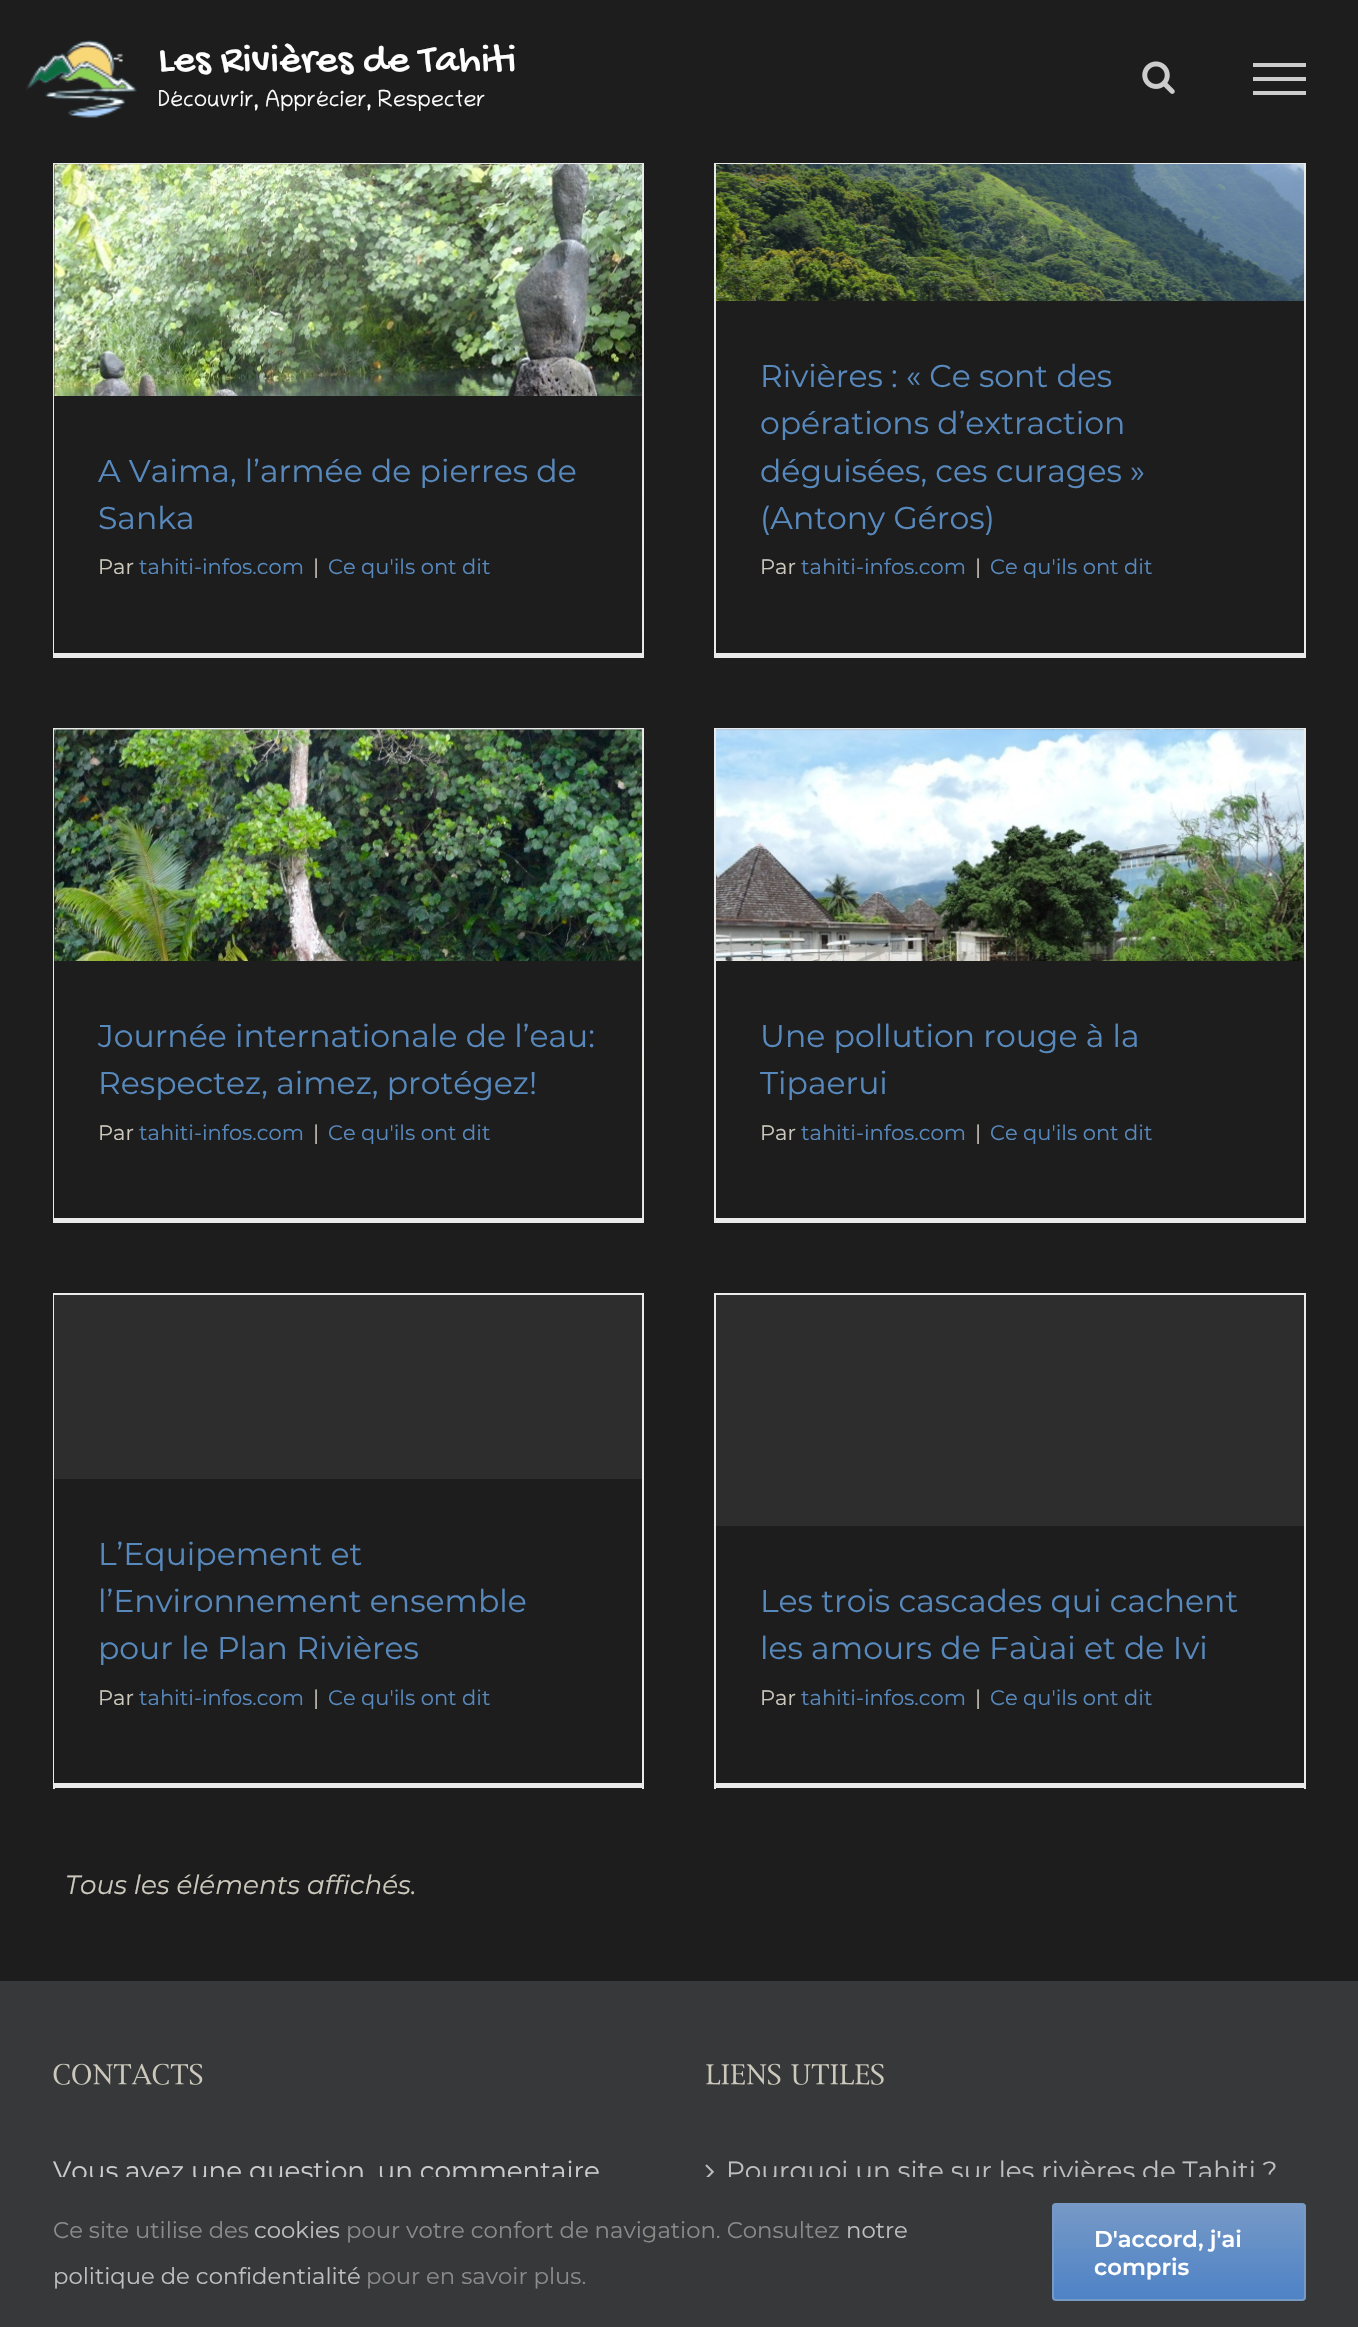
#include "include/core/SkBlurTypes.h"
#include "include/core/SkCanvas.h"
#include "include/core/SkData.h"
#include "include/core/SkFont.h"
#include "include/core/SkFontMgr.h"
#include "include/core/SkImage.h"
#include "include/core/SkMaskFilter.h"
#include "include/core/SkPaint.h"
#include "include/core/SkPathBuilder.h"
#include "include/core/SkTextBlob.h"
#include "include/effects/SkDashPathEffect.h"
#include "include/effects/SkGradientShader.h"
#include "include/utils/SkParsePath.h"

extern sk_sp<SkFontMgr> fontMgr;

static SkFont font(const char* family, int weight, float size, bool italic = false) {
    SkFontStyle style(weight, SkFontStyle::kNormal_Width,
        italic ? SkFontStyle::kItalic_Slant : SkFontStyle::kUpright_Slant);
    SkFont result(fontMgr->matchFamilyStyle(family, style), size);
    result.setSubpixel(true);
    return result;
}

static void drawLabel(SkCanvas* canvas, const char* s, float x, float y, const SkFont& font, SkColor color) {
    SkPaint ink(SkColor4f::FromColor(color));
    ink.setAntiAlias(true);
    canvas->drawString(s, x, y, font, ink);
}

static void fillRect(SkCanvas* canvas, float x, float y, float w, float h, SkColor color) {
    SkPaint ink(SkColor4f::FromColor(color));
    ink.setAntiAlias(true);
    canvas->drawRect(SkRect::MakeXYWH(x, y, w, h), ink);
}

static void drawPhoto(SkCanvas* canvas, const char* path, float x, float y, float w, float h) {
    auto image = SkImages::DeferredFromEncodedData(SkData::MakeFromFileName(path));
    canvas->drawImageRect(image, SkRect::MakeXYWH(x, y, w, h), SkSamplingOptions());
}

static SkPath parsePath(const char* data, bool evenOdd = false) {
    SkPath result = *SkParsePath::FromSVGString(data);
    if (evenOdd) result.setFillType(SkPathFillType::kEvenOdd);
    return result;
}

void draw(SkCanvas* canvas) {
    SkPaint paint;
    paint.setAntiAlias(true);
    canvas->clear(0xFF1D1D1E);
    drawPhoto(canvas, "assets/img1.png", 26, 40, 111, 78);
    SkFont font1 = font("Gochi Hand", 400, 42);
    drawLabel(canvas, "Les Rivières de Tahiti", 158, 70, font1, 0xFFFFFFFF);
    SkFont font2 = font("Chilanka", 400, 22.75f);
    drawLabel(canvas, "Découvrir, Apprécier, Respecter", 158, 106, font2, 0xFFFFFFFF);
    drawPhoto(canvas, "assets/img2.png", 1142, 61, 33, 33);
    fillRect(canvas, 1253, 63, 53, 4, 0xFFCCCCCC);
    fillRect(canvas, 1253, 77, 53, 4, 0xFFCCCCCC);
    fillRect(canvas, 1253, 91, 53, 4, 0xFFCCCCCC);
    fillRect(canvas, 53, 163, 591, 1, 0xFFEBEAEA);
    fillRect(canvas, 642, 163, 2, 495, 0xFFEBEAEA);
    fillRect(canvas, 53, 653, 591, 5, 0xFFEBEAEA);
    fillRect(canvas, 53, 163, 2, 495, 0xFFEBEAEA);
    fillRect(canvas, 54, 165, 1, 231, 0xFF2D2D2D);
    drawPhoto(canvas, "assets/img3.png", 54, 164, 589, 488);
    fillRect(canvas, 54, 396, 588, 257, 0xFF1D1D1E);
    SkFont font3 = font("Montserrat", 400, 31.5f);
    drawLabel(canvas, "A Vaima, l’armée de pierres de", 98, 482, font3, 0xFF5889BD);
    drawLabel(canvas, "Sanka", 98, 529, font3, 0xFF5889BD);
    SkFont font4 = font("Montserrat", 400, 21);
    drawLabel(canvas, "Par", 98, 574, font4, 0xFFCCC8BC);
    drawLabel(canvas, "tahiti-infos.com", 139, 574, font4, 0xFF5889BD);
    drawLabel(canvas, "|", 313, 574, font4, 0xFFCCC8BC);
    drawLabel(canvas, "Ce qu'ils ont dit", 328, 574, font4, 0xFF5889BD);
    fillRect(canvas, 714, 163, 592, 1, 0xFFEBEAEA);
    fillRect(canvas, 1304, 163, 2, 495, 0xFFEBEAEA);
    fillRect(canvas, 714, 653, 592, 5, 0xFFEBEAEA);
    fillRect(canvas, 714, 163, 2, 495, 0xFFEBEAEA);
    drawPhoto(canvas, "assets/img4.png", 716, 164, 588, 137);
    drawLabel(canvas, "Rivières : « Ce sont des", 760, 387, font3, 0xFF5889BD);
    drawLabel(canvas, "opérations d’extraction", 760, 434, font3, 0xFF5889BD);
    drawLabel(canvas, "déguisées, ces curages »", 760, 482, font3, 0xFF5889BD);
    drawLabel(canvas, "(Antony Géros)", 760, 529, font3, 0xFF5889BD);
    drawLabel(canvas, "Par", 760, 574, font4, 0xFFCCC8BC);
    drawLabel(canvas, "tahiti-infos.com", 801, 574, font4, 0xFF5889BD);
    drawLabel(canvas, "|", 975, 574, font4, 0xFFCCC8BC);
    drawLabel(canvas, "Ce qu'ils ont dit", 990, 574, font4, 0xFF5889BD);
    fillRect(canvas, 53, 728, 591, 2, 0xFFEBEAEA);
    fillRect(canvas, 642, 728, 2, 495, 0xFFEBEAEA);
    fillRect(canvas, 53, 1218, 591, 5, 0xFFEBEAEA);
    fillRect(canvas, 53, 728, 2, 495, 0xFFEBEAEA);
    fillRect(canvas, 54, 730, 1, 231, 0xFF2D2D2D);
    drawPhoto(canvas, "assets/img5.png", 54, 729, 589, 488);
    fillRect(canvas, 54, 961, 588, 257, 0xFF1D1D1E);
    drawLabel(canvas, "Journée internationale de l’eau:", 98, 1047, font3, 0xFF5889BD);
    drawLabel(canvas, "Respectez, aimez, protégez!", 98, 1094, font3, 0xFF5889BD);
    drawLabel(canvas, "Par", 98, 1140, font4, 0xFFCCC8BC);
    drawLabel(canvas, "tahiti-infos.com", 139, 1140, font4, 0xFF5889BD);
    drawLabel(canvas, "|", 313, 1140, font4, 0xFFCCC8BC);
    drawLabel(canvas, "Ce qu'ils ont dit", 328, 1140, font4, 0xFF5889BD);
    fillRect(canvas, 714, 728, 592, 1, 0xFFEBEAEA);
    fillRect(canvas, 1304, 728, 2, 495, 0xFFEBEAEA);
    fillRect(canvas, 714, 1218, 592, 5, 0xFFEBEAEA);
    fillRect(canvas, 714, 728, 2, 495, 0xFFEBEAEA);
    drawPhoto(canvas, "assets/img6.png", 716, 729, 588, 232);
    drawLabel(canvas, "Une pollution rouge à la", 760, 1047, font3, 0xFF5889BD);
    drawLabel(canvas, "Tipaerui", 760, 1094, font3, 0xFF5889BD);
    drawLabel(canvas, "Par", 760, 1140, font4, 0xFFCCC8BC);
    drawLabel(canvas, "tahiti-infos.com", 801, 1140, font4, 0xFF5889BD);
    drawLabel(canvas, "|", 975, 1140, font4, 0xFFCCC8BC);
    drawLabel(canvas, "Ce qu'ils ont dit", 990, 1140, font4, 0xFF5889BD);
    fillRect(canvas, 53, 1293, 591, 2, 0xFFEBEAEA);
    fillRect(canvas, 642, 1293, 2, 496, 0xFFEBEAEA);
    fillRect(canvas, 53, 1783, 591, 5, 0xFFEBEAEA);
    fillRect(canvas, 53, 1293, 2, 496, 0xFFEBEAEA);
    fillRect(canvas, 54, 1295, 588, 184, 0xFF2D2D2D);
    fillRect(canvas, 54, 1479, 1, 304, 0xFF1D1D1E);
    drawLabel(canvas, "L’Equipement et", 98, 1565, font3, 0xFF5889BD);
    drawLabel(canvas, "l’Environnement ensemble", 98, 1612, font3, 0xFF5889BD);
    drawLabel(canvas, "pour le Plan Rivières", 98, 1659, font3, 0xFF5889BD);
    drawLabel(canvas, "Par", 98, 1705, font4, 0xFFCCC8BC);
    drawLabel(canvas, "tahiti-infos.com", 139, 1705, font4, 0xFF5889BD);
    drawLabel(canvas, "|", 313, 1705, font4, 0xFFCCC8BC);
    drawLabel(canvas, "Ce qu'ils ont dit", 328, 1705, font4, 0xFF5889BD);
    fillRect(canvas, 714, 1293, 592, 2, 0xFFEBEAEA);
    fillRect(canvas, 1304, 1293, 2, 496, 0xFFEBEAEA);
    fillRect(canvas, 714, 1783, 592, 5, 0xFFEBEAEA);
    fillRect(canvas, 714, 1293, 2, 496, 0xFFEBEAEA);
    fillRect(canvas, 716, 1295, 588, 231, 0xFF2D2D2D);
    drawLabel(canvas, "Les trois cascades qui cachent", 760, 1612, font3, 0xFF5889BD);
    drawLabel(canvas, "les amours de Faùai et de Ivi", 760, 1659, font3, 0xFF5889BD);
    drawLabel(canvas, "Par", 760, 1705, font4, 0xFFCCC8BC);
    drawLabel(canvas, "tahiti-infos.com", 801, 1705, font4, 0xFF5889BD);
    drawLabel(canvas, "|", 975, 1705, font4, 0xFFCCC8BC);
    drawLabel(canvas, "Ce qu'ils ont dit", 990, 1705, font4, 0xFF5889BD);
    SkFont font5 = font("Montserrat", 400, 26.25f, true);
    drawLabel(canvas, "Tous les éléments affichés.", 65, 1894, font5, 0xFFCCC8BC);
    fillRect(canvas, 0, 1981, 1358, 196, 0xFF363839);
    drawPhoto(canvas, "assets/img7.png", 53, 2063, 150, 22);
    SkFont font6 = font("Montserrat", 400, 26.25f);
    drawLabel(canvas, "Vous avez une question, un commentaire", 53, 2180, font6, 0xFFCCCCCC);
    drawPhoto(canvas, "assets/img8.png", 706, 2063, 178, 22);
    drawPhoto(canvas, "assets/img9.png", 705, 2164, 9, 13);
    drawLabel(canvas, "Pourquoi un site sur les rivières de Tahiti ?", 726, 2180, font6, 0xFFBFBFBF);
    fillRect(canvas, 0, 2177, 1358, 150, 0xFF363839);
    SkFont font7 = font("Montserrat", 400, 22.75f);
    drawLabel(canvas, "Ce site utilise des", 53, 2238, font7, 0xFF8C8989);
    drawLabel(canvas, "cookies", 254, 2238, font7, 0xFFBFBFBF);
    drawLabel(canvas, "pour votre confort de navigation. Consultez", 346, 2238, font7, 0xFF8C8989);
    drawLabel(canvas, "notre", 846, 2238, font7, 0xFFBFBFBF);
    drawLabel(canvas, "politique de confidentialité", 53, 2284, font7, 0xFFBFBFBF);
    drawLabel(canvas, "pour en savoir plus.", 366, 2284, font7, 0xFF8C8989);
    canvas->save();
    canvas->clipPath(parsePath("M1056 2203H1302C1304 2203 1306 2205 1306 2207V2297C1306 2299 1304 2301 1302 2301H1056C1054 2301 1052 2299 1052 2297V2207C1052 2205 1054 2203 1056 2203Z"), true);
    {
        const SkColor colors[] = {0xFF7699C6, 0xFF4D82C6};
        const float stops[] = {0, 1};
        const SkPoint ends[] = {{1179, 2205}, {1179, 2300}};
        paint.setShader(SkGradientShader::MakeLinear(ends, colors, stops, 2, SkTileMode::kClamp));
        paint.setAlpha(255);
    }
    canvas->drawRect(SkRect::MakeXYWH(1052, 2205, 254, 95), paint);
    canvas->restore();
    paint.setStroke(true);
    paint.setStrokeWidth(2);
    paint.setShader(nullptr);
    paint.setColor(0xFF7699C6);
    canvas->drawRoundRect(SkRect::MakeXYWH(1053, 2204, 252, 96), 3, 3, paint);
    SkFont font8 = font("Montserrat", 600, 22.75f);
    drawLabel(canvas, "D'accord, j'ai", 1094, 2247, font8, 0xFFFFFFFF);
    drawLabel(canvas, "compris", 1094, 2275, font8, 0xFFFFFFFF);
}
